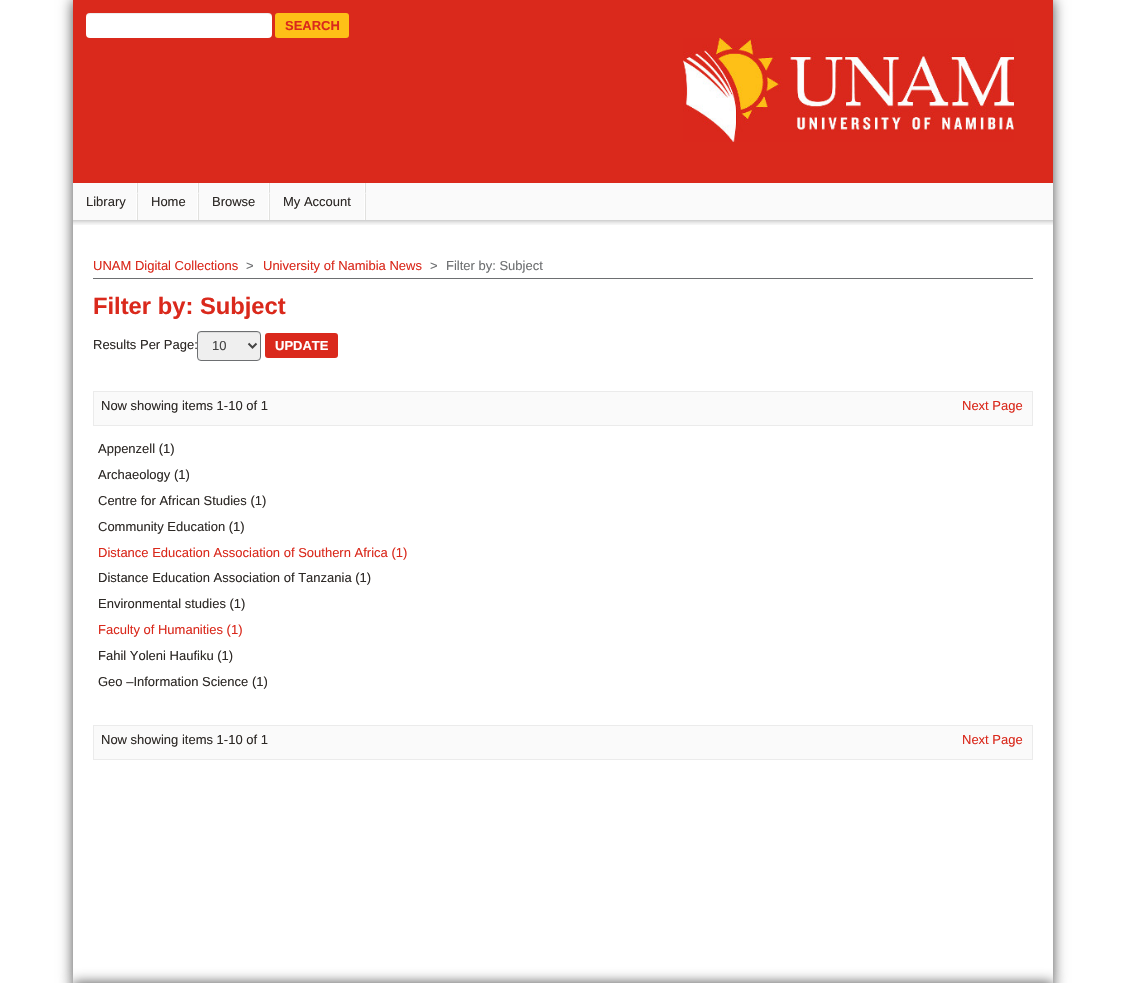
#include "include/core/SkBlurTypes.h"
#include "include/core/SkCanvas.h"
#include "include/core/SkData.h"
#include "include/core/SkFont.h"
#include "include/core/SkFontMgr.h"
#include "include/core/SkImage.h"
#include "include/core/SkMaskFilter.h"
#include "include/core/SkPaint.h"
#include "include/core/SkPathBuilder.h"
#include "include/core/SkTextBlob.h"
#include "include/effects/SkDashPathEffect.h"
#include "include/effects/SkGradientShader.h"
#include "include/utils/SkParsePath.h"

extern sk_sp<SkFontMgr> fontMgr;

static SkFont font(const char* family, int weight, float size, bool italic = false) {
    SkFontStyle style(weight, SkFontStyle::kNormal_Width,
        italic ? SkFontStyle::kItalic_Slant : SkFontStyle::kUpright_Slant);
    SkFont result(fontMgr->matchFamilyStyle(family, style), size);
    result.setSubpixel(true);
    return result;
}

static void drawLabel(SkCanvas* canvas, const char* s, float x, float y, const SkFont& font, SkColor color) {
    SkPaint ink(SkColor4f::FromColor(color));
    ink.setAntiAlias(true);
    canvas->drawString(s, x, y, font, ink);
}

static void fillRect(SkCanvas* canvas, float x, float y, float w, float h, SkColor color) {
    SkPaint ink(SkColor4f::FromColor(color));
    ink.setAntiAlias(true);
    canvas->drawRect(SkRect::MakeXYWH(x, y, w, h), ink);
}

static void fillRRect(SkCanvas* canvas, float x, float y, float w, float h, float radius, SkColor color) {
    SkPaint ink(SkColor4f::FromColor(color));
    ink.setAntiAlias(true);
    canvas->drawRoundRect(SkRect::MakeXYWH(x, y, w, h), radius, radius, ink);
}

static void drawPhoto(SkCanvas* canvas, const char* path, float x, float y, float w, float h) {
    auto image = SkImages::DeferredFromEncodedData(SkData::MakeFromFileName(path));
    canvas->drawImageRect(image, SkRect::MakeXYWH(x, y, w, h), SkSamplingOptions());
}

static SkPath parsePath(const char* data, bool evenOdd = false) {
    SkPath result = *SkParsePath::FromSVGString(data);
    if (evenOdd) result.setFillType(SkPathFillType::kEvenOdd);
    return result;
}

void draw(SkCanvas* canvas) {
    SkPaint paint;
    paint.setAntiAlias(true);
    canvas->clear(0xFFFFFFFF);
    canvas->save();
    canvas->clipPath(parsePath("M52 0H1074V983H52ZM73 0H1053V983H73Z", true), true);
    paint.setColor(0xB3000000);
    paint.setMaskFilter(SkMaskFilter::MakeBlur(kNormal_SkBlurStyle, 6.5f));
    canvas->drawRect(SkRect::MakeXYWH(73, 0, 980, 983), paint);
    paint.setMaskFilter(nullptr);
    canvas->restore();
    fillRect(canvas, 73, 0, 980, 183, 0xFFDA291C);
    fillRRect(canvas, 86, 13, 186, 25, 4, 0xFFFFFFFF);
    paint.setColor(0x12000000);
    canvas->drawPath(parsePath("M90 14H268C270 14 272 16 272 18C272 15 271 13 268 13H89C87 14 86 16 86 18C86 16 88 14 90 14Z"), paint);
    fillRRect(canvas, 275, 13, 74, 25, 3, 0xFFFEC017);
    SkFont font1 = font("Liberation Sans", 700, 13);
    drawLabel(canvas, "SEARCH", 285, 30, font1, 0xFFDA291C);
    drawPhoto(canvas, "assets/img1.png", 683, 38, 331, 104);
    drawPhoto(canvas, "assets/img2.png", 73, 220, 980, 5);
    fillRect(canvas, 73, 183, 980, 37, 0xFFFAFAFA);
    drawPhoto(canvas, "assets/img3.png", 136, 183, 2, 37);
    SkFont font2 = font("Liberation Sans", 400, 13);
    drawLabel(canvas, "Library", 86, 206, font2, 0xFF2D2926);
    drawPhoto(canvas, "assets/img3.png", 197, 183, 2, 37);
    drawLabel(canvas, "Home", 151, 206, font2, 0xFF2D2926);
    drawPhoto(canvas, "assets/img3.png", 268, 183, 2, 37);
    drawLabel(canvas, "Browse", 212, 206, font2, 0xFF2D2926);
    drawPhoto(canvas, "assets/img3.png", 364, 183, 2, 37);
    drawLabel(canvas, "My Account", 283, 206, font2, 0xFF2D2926);
    fillRect(canvas, 93, 278, 940, 1, 0xFF6D6F71);
    drawLabel(canvas, "UNAM Digital Collections", 93, 270, font2, 0xFFDA291C);
    drawLabel(canvas, ">", 246, 270, font2, 0xFF6D6F71);
    drawLabel(canvas, "University of Namibia News", 263, 270, font2, 0xFFDA291C);
    drawLabel(canvas, ">", 430, 270, font2, 0xFF6D6F71);
    drawLabel(canvas, "Filter by: Subject", 446, 270, font2, 0xFF6D6F71);
    SkFont font3 = font("Liberation Sans", 700, 23.75f);
    drawLabel(canvas, "Filter by: Subject", 93, 314, font3, 0xFFDA291C);
    drawLabel(canvas, "Results Per Page:", 93, 349, font2, 0xFF2D2926);
    fillRRect(canvas, 197, 331, 64, 30, 4, 0xFFEFEFEF);
    paint.setColor(0xFFDDDDDD);
    canvas->drawPath(parsePath("M201 333H257C259 333 260 334 260 336C260 330 252 332 248 332H210C206 332 198 330 198 336C198 334 199 333 201 333Z"), paint);
    paint.setStroke(true);
    paint.setStrokeWidth(1);
    paint.setColor(0xFF6D6F71);
    canvas->drawRoundRect(SkRect::MakeXYWH(197.5f, 331.5f, 63, 29), 3.5f, 3.5f, paint);
    paint.setStrokeWidth(2);
    paint.setColor(0xFF444444);
    canvas->drawPath(parsePath("M248.5 343.5L252.5 347.5L256.5 343.5"), paint);
    drawLabel(canvas, "10", 212, 350, font2, 0xFF444444);
    fillRRect(canvas, 265, 333, 73, 25, 3, 0xFFDA291C);
    drawLabel(canvas, "UPDATE", 275, 350, font1, 0xFFFFFFFF);
    paint.setStroke(false);
    paint.setColor(0xFFFAFAFA);
    canvas->drawRect(SkRect::MakeXYWH(93.5f, 391.5f, 939, 34), paint);
    paint.setStroke(true);
    paint.setStrokeWidth(1);
    paint.setColor(0xFFEBEBEB);
    canvas->drawRect(SkRect::MakeXYWH(93.5f, 391.5f, 939, 34), paint);
    drawLabel(canvas, "Now showing items 1-10 of 1", 101, 410, font2, 0xFF2D2926);
    drawLabel(canvas, "Next Page", 962, 410, font2, 0xFFDA291C);
    drawLabel(canvas, "Appenzell (1)", 98, 453, font2, 0xFF2D2926);
    drawLabel(canvas, "Archaeology (1)", 98, 479, font2, 0xFF2D2926);
    drawLabel(canvas, "Centre for African Studies (1)", 98, 505, font2, 0xFF2D2926);
    drawLabel(canvas, "Community Education (1)", 98, 531, font2, 0xFF2D2926);
    drawLabel(canvas, "Distance Education Association of Southern Africa (1)", 98, 557, font2, 0xFFDA291C);
    drawLabel(canvas, "Distance Education Association of Tanzania (1)", 98, 582, font2, 0xFF2D2926);
    drawLabel(canvas, "Environmental studies (1)", 98, 608, font2, 0xFF2D2926);
    drawLabel(canvas, "Faculty of Humanities (1)", 98, 634, font2, 0xFFDA291C);
    drawLabel(canvas, "Fahil Yoleni Haufiku (1)", 98, 660, font2, 0xFF2D2926);
    drawLabel(canvas, "Geo –Information Science (1)", 98, 686, font2, 0xFF2D2926);
    paint.setStroke(false);
    paint.setColor(0xFFFAFAFA);
    canvas->drawRect(SkRect::MakeXYWH(93.5f, 725.5f, 939, 34), paint);
    paint.setStroke(true);
    paint.setColor(0xFFEBEBEB);
    canvas->drawRect(SkRect::MakeXYWH(93.5f, 725.5f, 939, 34), paint);
    drawLabel(canvas, "Now showing items 1-10 of 1", 101, 744, font2, 0xFF2D2926);
    drawLabel(canvas, "Next Page", 962, 744, font2, 0xFFDA291C);
    paint.setStroke(false);
    paint.setColor(0xB3000000);
    paint.setMaskFilter(SkMaskFilter::MakeBlur(kNormal_SkBlurStyle, 6.5f));
    canvas->drawRect(SkRect::MakeXYWH(73, 983, 980, 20), paint);
    paint.setMaskFilter(nullptr);
}
